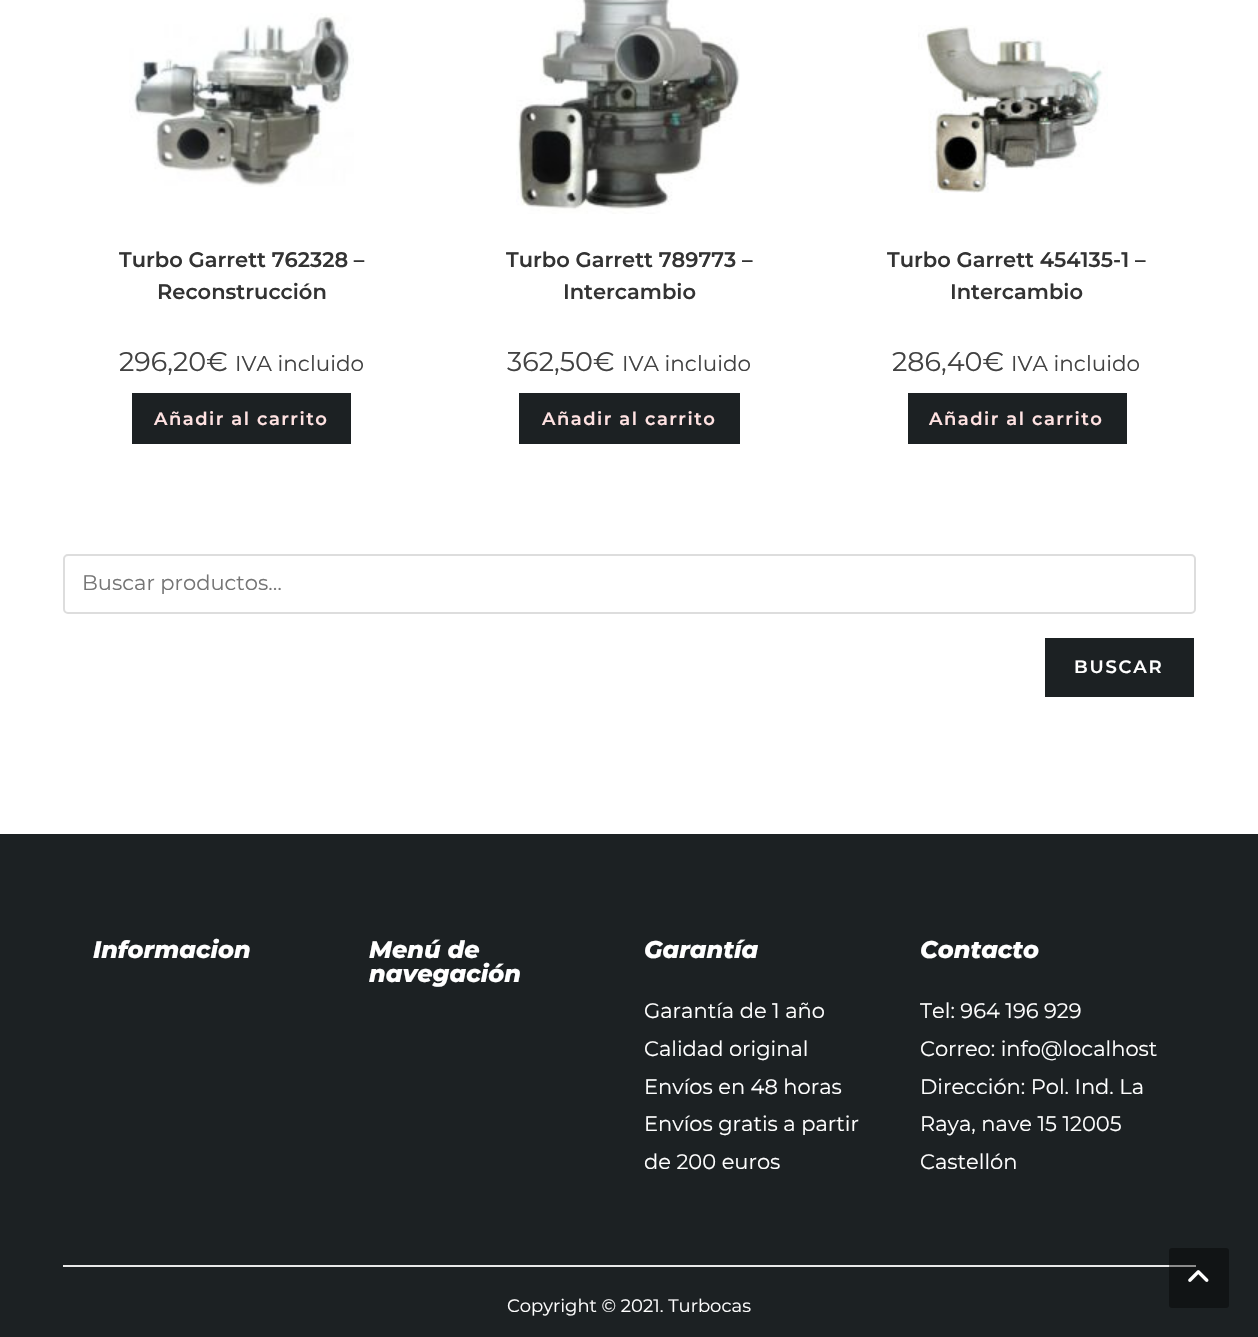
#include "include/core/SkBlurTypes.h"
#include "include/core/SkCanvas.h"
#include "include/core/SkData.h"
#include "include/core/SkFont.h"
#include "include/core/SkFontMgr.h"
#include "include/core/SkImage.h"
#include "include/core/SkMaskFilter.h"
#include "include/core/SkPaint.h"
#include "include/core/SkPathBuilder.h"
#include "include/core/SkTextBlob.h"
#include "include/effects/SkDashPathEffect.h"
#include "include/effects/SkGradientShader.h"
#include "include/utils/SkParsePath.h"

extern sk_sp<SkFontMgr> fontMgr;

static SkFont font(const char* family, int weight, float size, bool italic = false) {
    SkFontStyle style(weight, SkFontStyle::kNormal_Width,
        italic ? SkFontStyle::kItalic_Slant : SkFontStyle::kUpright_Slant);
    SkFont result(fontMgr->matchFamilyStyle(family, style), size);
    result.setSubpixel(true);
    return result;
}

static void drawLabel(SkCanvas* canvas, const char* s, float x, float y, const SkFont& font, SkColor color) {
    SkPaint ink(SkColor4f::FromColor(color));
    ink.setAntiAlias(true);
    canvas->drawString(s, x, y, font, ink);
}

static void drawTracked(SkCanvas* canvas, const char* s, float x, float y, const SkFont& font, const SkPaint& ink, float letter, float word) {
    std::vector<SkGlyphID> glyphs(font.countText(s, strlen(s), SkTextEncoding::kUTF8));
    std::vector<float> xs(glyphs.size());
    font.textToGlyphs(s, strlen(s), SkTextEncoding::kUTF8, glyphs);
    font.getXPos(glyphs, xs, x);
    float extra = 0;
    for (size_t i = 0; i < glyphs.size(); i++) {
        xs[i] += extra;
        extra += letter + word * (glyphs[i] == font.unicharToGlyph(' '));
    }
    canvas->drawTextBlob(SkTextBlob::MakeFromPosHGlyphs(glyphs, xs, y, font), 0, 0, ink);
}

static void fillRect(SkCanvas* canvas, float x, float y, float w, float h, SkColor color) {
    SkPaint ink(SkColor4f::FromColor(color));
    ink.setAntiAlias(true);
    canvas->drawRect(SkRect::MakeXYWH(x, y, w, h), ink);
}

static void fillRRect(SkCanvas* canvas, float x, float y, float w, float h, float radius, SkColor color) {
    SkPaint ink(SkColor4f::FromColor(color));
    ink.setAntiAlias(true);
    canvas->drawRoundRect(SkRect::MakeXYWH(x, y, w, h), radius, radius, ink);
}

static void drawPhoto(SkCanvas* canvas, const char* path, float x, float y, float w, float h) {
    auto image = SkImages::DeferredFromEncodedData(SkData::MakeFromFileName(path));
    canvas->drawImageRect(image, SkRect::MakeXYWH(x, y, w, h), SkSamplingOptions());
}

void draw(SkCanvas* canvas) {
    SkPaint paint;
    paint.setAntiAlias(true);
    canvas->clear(0xFFFFFFFF);
    drawPhoto(canvas, "assets/img1.png", 129, 13, 225, 174);
    SkFont font1 = font("Montserrat", 600, 21);
    drawLabel(canvas, "Turbo Garrett 762328 –", 119, 267, font1, 0xFF333333);
    drawLabel(canvas, "Reconstrucción", 157, 299, font1, 0xFF333333);
    SkFont font2 = font("Montserrat", 400, 27);
    drawLabel(canvas, "296,20€", 119, 371, font2, 0xFF424242);
    SkFont font3 = font("Montserrat", 400, 21.5f);
    drawLabel(canvas, "IVA incluido", 235, 371, font3, 0xFF424242);
    fillRect(canvas, 132, 393, 219, 51, 0xFF1C2123);
    SkFont font4 = font("Montserrat", 600, 18);
    paint.setColor(0xFFFFE2E2);
    drawTracked(canvas, "Añadir al carrito", 154, 425, font4, paint, 1.5f, 0);
    drawPhoto(canvas, "assets/img2.png", 516, 0, 224, 214);
    drawLabel(canvas, "Turbo Garrett 789773 –", 506, 267, font1, 0xFF333333);
    drawLabel(canvas, "Intercambio", 563, 299, font1, 0xFF333333);
    drawLabel(canvas, "362,50€", 507, 371, font2, 0xFF424242);
    drawLabel(canvas, "IVA incluido", 622, 371, font3, 0xFF424242);
    fillRect(canvas, 519, 393, 221, 51, 0xFF1C2123);
    drawTracked(canvas, "Añadir al carrito", 542, 425, font4, paint, 1.5f, 0);
    drawPhoto(canvas, "assets/img3.png", 918, 25, 190, 168);
    drawLabel(canvas, "Turbo Garrett 454135-1 –", 887, 267, font1, 0xFF333333);
    drawLabel(canvas, "Intercambio", 950, 299, font1, 0xFF333333);
    drawLabel(canvas, "286,40€", 892, 371, font2, 0xFF424242);
    drawLabel(canvas, "IVA incluido", 1011, 371, font3, 0xFF424242);
    fillRect(canvas, 908, 393, 219, 51, 0xFF1C2123);
    drawTracked(canvas, "Añadir al carrito", 929, 425, font4, paint, 1.5f, 0);
    paint.setStroke(true);
    paint.setStrokeWidth(2);
    paint.setColor(0xFFDDDDDD);
    canvas->drawRoundRect(SkRect::MakeXYWH(64, 555, 1131, 58), 4, 4, paint);
    SkFont font5 = font("Montserrat", 400, 21);
    drawLabel(canvas, "Buscar productos…", 82, 590, font5, 0xFF757575);
    fillRect(canvas, 1045, 638, 149, 59, 0xFF1C2123);
    paint.setStroke(false);
    paint.setColor(0xFFFFFFFF);
    drawTracked(canvas, "BUSCAR", 1074, 673, font4, paint, 1.75f, 0);
    fillRect(canvas, 0, 834, 1258, 503, 0xFF1C2123);
    SkFont font6 = font("Montserrat", 800, 24, true);
    drawLabel(canvas, "Informacion", 93, 958, font6, 0xFFFFFFFF);
    drawLabel(canvas, "Menú de", 369, 958, font6, 0xFFFFFFFF);
    drawLabel(canvas, "navegación", 369, 982, font6, 0xFFFFFFFF);
    drawLabel(canvas, "Garantía", 644, 958, font6, 0xFFFFFFFF);
    drawLabel(canvas, "Garantía de 1 año", 644, 1018, font5, 0xFFFFFFFF);
    drawLabel(canvas, "Calidad original", 644, 1056, font5, 0xFFFFFFFF);
    drawLabel(canvas, "Envíos en 48 horas", 644, 1094, font5, 0xFFFFFFFF);
    drawLabel(canvas, "Envíos gratis a partir", 644, 1131, font5, 0xFFFFFFFF);
    drawLabel(canvas, "de 200 euros", 644, 1169, font5, 0xFFFFFFFF);
    drawLabel(canvas, "Contacto", 920, 958, font6, 0xFFFFFFFF);
    drawLabel(canvas, "Tel: 964 196 929", 920, 1018, font5, 0xFFFFFFFF);
    drawLabel(canvas, "Correo: info@localhost", 920, 1056, font5, 0xFFFFFFFF);
    drawLabel(canvas, "Dirección: Pol. Ind. La", 920, 1094, font5, 0xFFFFFFFF);
    drawLabel(canvas, "Raya, nave 15 12005", 920, 1131, font5, 0xFFFFFFFF);
    drawLabel(canvas, "Castellón", 920, 1169, font5, 0xFFFFFFFF);
    fillRect(canvas, 63, 1265, 1133, 2, 0xFFE9E9E9);
    SkFont font7 = font("Montserrat", 400, 18);
    drawLabel(canvas, "Copyright © 2021. Turbocas", 507, 1312, font7, 0xFFFFFFFF);
    fillRRect(canvas, 1169, 1248, 60, 60, 3, 0x66000000);
    drawPhoto(canvas, "assets/img4.png", 1188, 1270, 21, 12);
}
